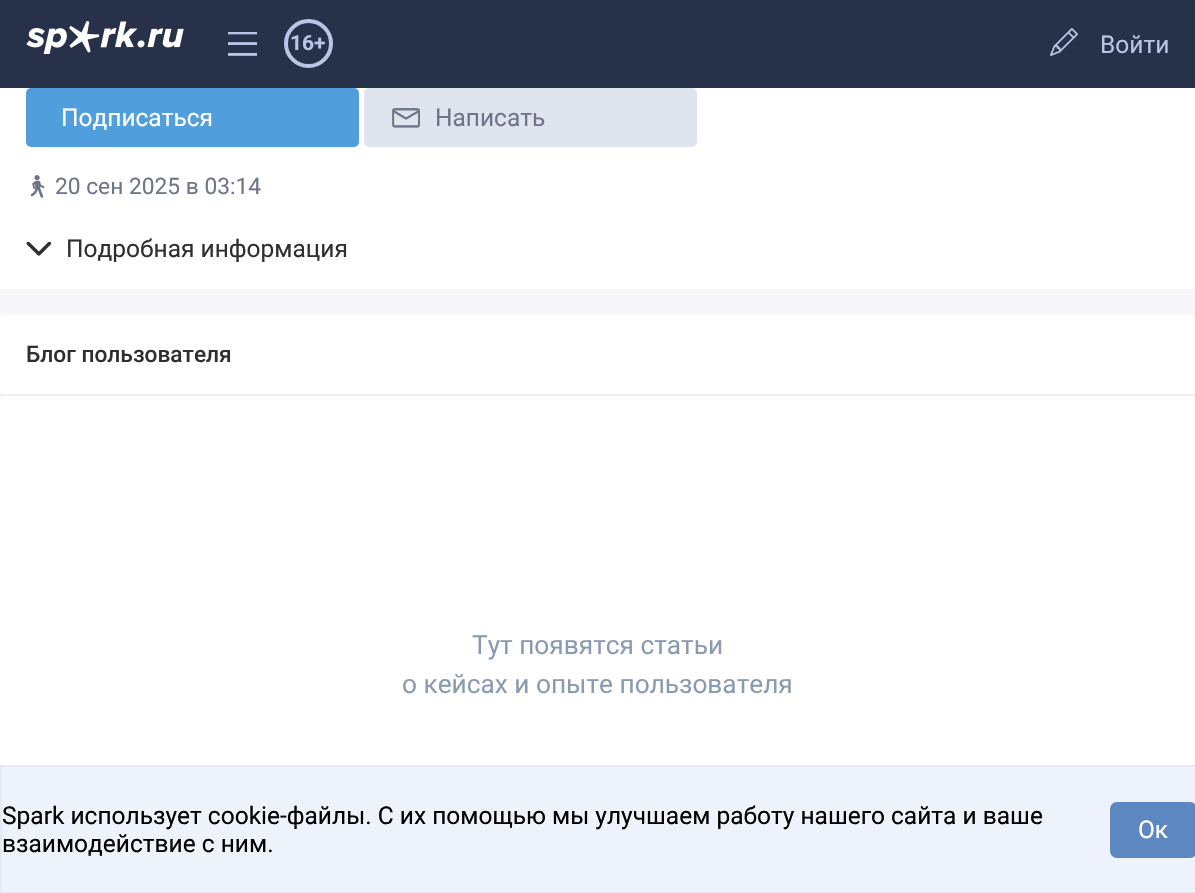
#include "include/core/SkBlurTypes.h"
#include "include/core/SkCanvas.h"
#include "include/core/SkData.h"
#include "include/core/SkFont.h"
#include "include/core/SkFontMgr.h"
#include "include/core/SkImage.h"
#include "include/core/SkMaskFilter.h"
#include "include/core/SkPaint.h"
#include "include/core/SkPathBuilder.h"
#include "include/core/SkTextBlob.h"
#include "include/effects/SkDashPathEffect.h"
#include "include/effects/SkGradientShader.h"
#include "include/utils/SkParsePath.h"

extern sk_sp<SkFontMgr> fontMgr;

static SkFont font(const char* family, int weight, float size, bool italic = false) {
    SkFontStyle style(weight, SkFontStyle::kNormal_Width,
        italic ? SkFontStyle::kItalic_Slant : SkFontStyle::kUpright_Slant);
    SkFont result(fontMgr->matchFamilyStyle(family, style), size);
    result.setSubpixel(true);
    return result;
}

static void drawLabel(SkCanvas* canvas, const char* s, float x, float y, const SkFont& font, SkColor color) {
    SkPaint ink(SkColor4f::FromColor(color));
    ink.setAntiAlias(true);
    canvas->drawString(s, x, y, font, ink);
}

static void fillRect(SkCanvas* canvas, float x, float y, float w, float h, SkColor color) {
    SkPaint ink(SkColor4f::FromColor(color));
    ink.setAntiAlias(true);
    canvas->drawRect(SkRect::MakeXYWH(x, y, w, h), ink);
}

static void fillRRect(SkCanvas* canvas, float x, float y, float w, float h, float radius, SkColor color) {
    SkPaint ink(SkColor4f::FromColor(color));
    ink.setAntiAlias(true);
    canvas->drawRoundRect(SkRect::MakeXYWH(x, y, w, h), radius, radius, ink);
}

static void drawPhoto(SkCanvas* canvas, const char* path, float x, float y, float w, float h) {
    auto image = SkImages::DeferredFromEncodedData(SkData::MakeFromFileName(path));
    canvas->drawImageRect(image, SkRect::MakeXYWH(x, y, w, h), SkSamplingOptions());
}

static SkPath parsePath(const char* data, bool evenOdd = false) {
    SkPath result = *SkParsePath::FromSVGString(data);
    if (evenOdd) result.setFillType(SkPathFillType::kEvenOdd);
    return result;
}

void draw(SkCanvas* canvas) {
    SkPaint paint;
    paint.setAntiAlias(true);
    canvas->clear(0xFFF7F7F9);
    fillRect(canvas, 0, 221, 1195, 68, 0xFFFFFFFF);
    fillRRect(canvas, 0, -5, 1195, 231, 5, 0xFFFFFFFF);
    fillRect(canvas, 0, 0, 1195, 88, 0xFF273149);
    drawPhoto(canvas, "assets/img1.png", 26, 21, 158, 33);
    drawPhoto(canvas, "assets/img2.png", 228, 32, 29, 24);
    paint.setStroke(true);
    paint.setStrokeWidth(4);
    paint.setColor(0xFFBCC4E6);
    canvas->drawCircle(308.5f, 43.5f, 22.5f, paint);
    SkFont font1 = font("Roboto", 700, 21);
    drawLabel(canvas, "16+", 290, 50, font1, 0xFFBCC4E6);
    drawPhoto(canvas, "assets/img3.png", 1050, 28, 28, 28);
    SkFont font2 = font("Roboto", 400, 24.5f);
    drawLabel(canvas, "Войти", 1100, 53, font2, 0xFFBCC4E6);
    fillRRect(canvas, 26, 88, 333, 59, 5, 0xFF509FDC);
    drawLabel(canvas, "Подписаться", 61, 126, font2, 0xFFFFFFFF);
    fillRRect(canvas, 364, 88, 333, 59, 5, 0xFFDFE4EE);
    drawPhoto(canvas, "assets/img4.png", 392, 108, 28, 20);
    drawLabel(canvas, "Написать", 435, 126, font2, 0xFF6E758A);
    drawPhoto(canvas, "assets/img5.png", 30, 175, 15, 23);
    SkFont font3 = font("Roboto", 400, 22.75f);
    drawLabel(canvas, "20 сен 2025 в 03:14", 55, 194, font3, 0xFF6E758A);
    drawPhoto(canvas, "assets/img6.png", 26, 242, 25, 14);
    drawLabel(canvas, "Подробная информация", 66, 257, font2, 0xFF2F2F2F);
    paint.setStroke(false);
    paint.setColor(0xFFFFFFFF);
    canvas->drawPath(parsePath("M5 315H1190C1193 315 1195 317 1195 320V396H0V320C0 317 2 315 5 315Z"), paint);
    fillRect(canvas, 0, 394, 1195, 2, 0xFFECEFF3);
    SkFont font4 = font("Roboto", 500, 22.75f);
    drawLabel(canvas, "Блог пользователя", 26, 362, font4, 0xFF2F2F2F);
    fillRRect(canvas, 0, 396, 1195, 432, 5, 0xFFFFFFFF);
    SkFont font5 = font("Roboto", 400, 26.25f);
    drawLabel(canvas, "Тут появятся статьи", 472, 654, font5, 0xFF8A9AB1);
    drawLabel(canvas, "о кейсах и опыте пользователя", 402, 693, font5, 0xFF8A9AB1);
    paint.setColor(0xFFEDF2FB);
    canvas->drawRect(SkRect::MakeXYWH(1, 766, 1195, 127), paint);
    paint.setStroke(true);
    paint.setStrokeWidth(2);
    paint.setColor(0xFFE6E9F2);
    canvas->drawRect(SkRect::MakeXYWH(1, 766, 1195, 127), paint);
    drawLabel(canvas, "Spark использует cookie-файлы. С их помощью мы улучшаем работу нашего сайта и ваше", 2, 824, font2, 0xFF000000);
    drawLabel(canvas, "взаимодействие с ним.", 2, 852, font2, 0xFF000000);
    fillRRect(canvas, 1110, 802, 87, 56, 7, 0xFF5D87C0);
    drawLabel(canvas, "Ок", 1138, 838, font2, 0xFFFFFFFF);
}
